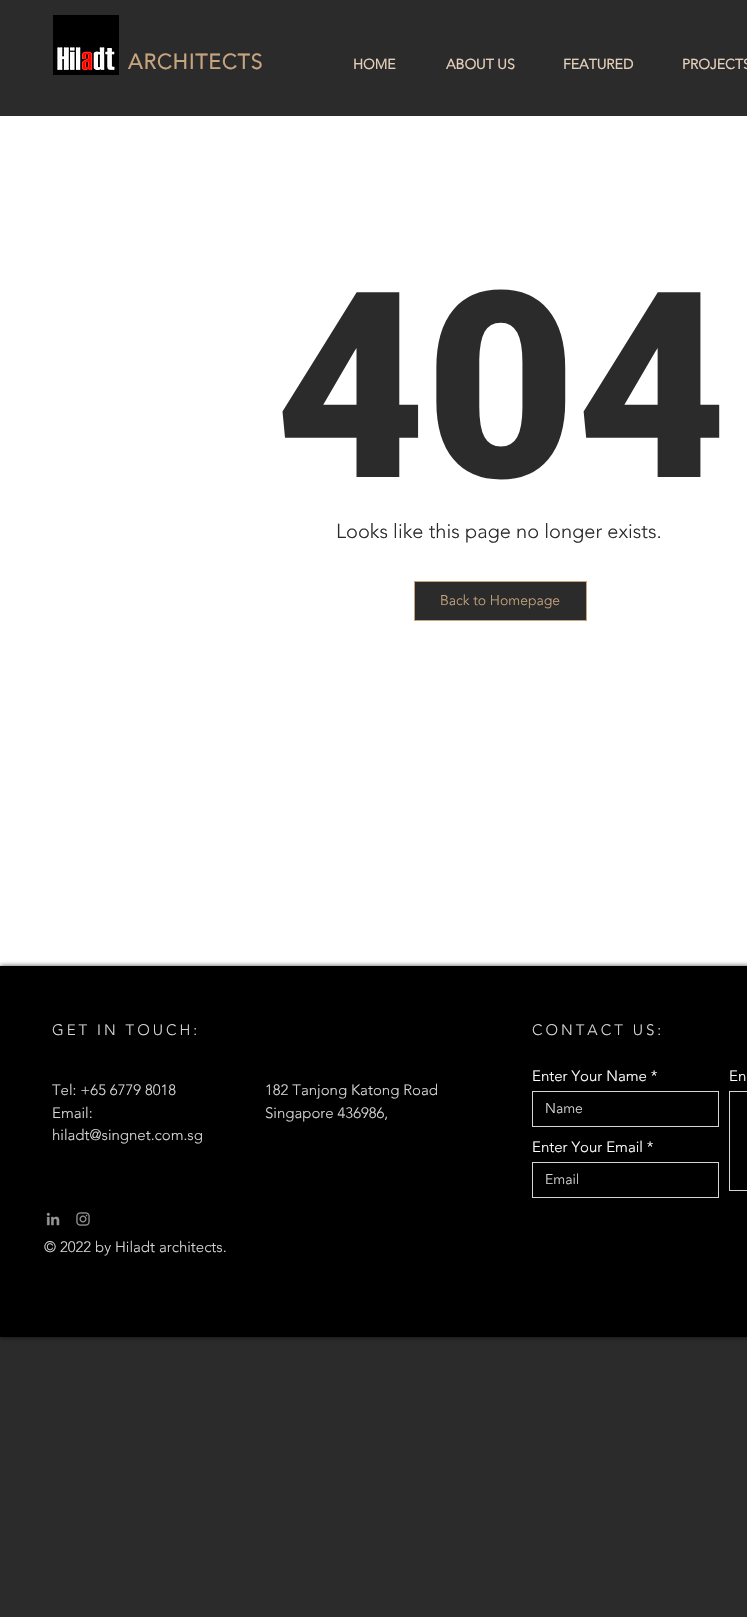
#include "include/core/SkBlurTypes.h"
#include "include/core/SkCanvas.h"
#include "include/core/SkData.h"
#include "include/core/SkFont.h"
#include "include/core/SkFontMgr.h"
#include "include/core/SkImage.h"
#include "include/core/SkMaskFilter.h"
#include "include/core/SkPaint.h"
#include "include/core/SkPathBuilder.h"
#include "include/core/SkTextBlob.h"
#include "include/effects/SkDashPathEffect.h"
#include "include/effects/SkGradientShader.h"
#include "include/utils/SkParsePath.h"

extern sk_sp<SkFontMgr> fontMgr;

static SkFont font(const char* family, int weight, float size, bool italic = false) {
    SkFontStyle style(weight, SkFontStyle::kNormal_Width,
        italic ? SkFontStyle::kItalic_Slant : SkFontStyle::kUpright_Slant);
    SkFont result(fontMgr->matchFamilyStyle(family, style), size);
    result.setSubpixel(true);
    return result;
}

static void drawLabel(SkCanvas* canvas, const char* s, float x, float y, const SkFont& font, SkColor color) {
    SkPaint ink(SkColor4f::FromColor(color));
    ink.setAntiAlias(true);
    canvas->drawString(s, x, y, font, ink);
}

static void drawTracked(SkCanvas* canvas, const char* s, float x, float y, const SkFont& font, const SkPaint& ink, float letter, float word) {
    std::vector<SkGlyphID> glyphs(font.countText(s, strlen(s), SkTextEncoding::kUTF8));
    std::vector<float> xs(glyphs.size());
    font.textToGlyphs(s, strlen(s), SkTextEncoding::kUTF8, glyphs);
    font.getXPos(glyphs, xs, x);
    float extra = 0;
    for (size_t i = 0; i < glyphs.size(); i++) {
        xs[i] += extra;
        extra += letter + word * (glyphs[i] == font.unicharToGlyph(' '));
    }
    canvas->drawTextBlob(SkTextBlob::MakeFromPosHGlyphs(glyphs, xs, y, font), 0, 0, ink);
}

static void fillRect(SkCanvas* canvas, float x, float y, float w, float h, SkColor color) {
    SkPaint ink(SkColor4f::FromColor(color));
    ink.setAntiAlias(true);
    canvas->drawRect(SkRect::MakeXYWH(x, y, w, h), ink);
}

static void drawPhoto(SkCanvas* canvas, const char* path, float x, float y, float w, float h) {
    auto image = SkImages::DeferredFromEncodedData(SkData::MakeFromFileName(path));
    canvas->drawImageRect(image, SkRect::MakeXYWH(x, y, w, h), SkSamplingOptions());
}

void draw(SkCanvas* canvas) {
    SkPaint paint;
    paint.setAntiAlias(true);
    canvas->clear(0xFF2B2B2B);
    drawPhoto(canvas, "assets/img1.png", 53, 15, 66, 60);
    SkFont font1 = font("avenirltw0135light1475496", 700, 21);
    paint.setColor(0xFFC6A47E);
    drawTracked(canvas, "ARCHITECTS", 128, 69, font1, paint, 1, 0);
    SkFont font2 = font("avenirltw0135light1475496", 700, 14);
    drawLabel(canvas, "HOME", 353, 69, font2, 0xFFE3CFB9);
    drawLabel(canvas, "ABOUT US", 446, 69, font2, 0xFFE3CFB9);
    drawLabel(canvas, "FEATURED", 563, 69, font2, 0xFFE3CFB9);
    drawLabel(canvas, "PROJECTS", 682, 69, font2, 0xFFE3CFB9);
    fillRect(canvas, 0, 116, 747, 850, 0xFFFFFFFF);
    SkFont font3 = font("Roboto", 900, 260);
    drawLabel(canvas, "404", 275, 477, font3, 0xFF2B2B2B);
    SkFont font4 = font("avenirltw0135light1475496", 300, 20);
    drawLabel(canvas, "Looks like this page no longer exists.", 336, 538, font4, 0xFF2B2B2B);
    paint.setColor(0xFF2B2B2B);
    canvas->drawRect(SkRect::MakeXYWH(414.5f, 581.5f, 172, 39), paint);
    paint.setStroke(true);
    paint.setStrokeWidth(1);
    paint.setColor(0xFFC6A47E);
    canvas->drawRect(SkRect::MakeXYWH(414.5f, 581.5f, 172, 39), paint);
    SkFont font5 = font("avenirltw0135light1475496", 300, 14);
    drawLabel(canvas, "Back to Homepage", 440, 605, font5, 0xFFC6A47E);
    paint.setStroke(false);
    paint.setColor(0xB3000000);
    paint.setMaskFilter(SkMaskFilter::MakeBlur(kNormal_SkBlurStyle, 2.5f));
    canvas->drawRect(SkRect::MakeXYWH(0, 966, 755, 371), paint);
    paint.setMaskFilter(nullptr);
    fillRect(canvas, 0, 966, 747, 371, 0xFF000000);
    SkFont font6 = font("avenirltw0135light1475496", 300, 15);
    paint.setColor(0xFFD5D5D5);
    drawTracked(canvas, "GET IN TOUCH:", 52, 1035, font6, paint, 3, 0);
    drawTracked(canvas, "CONTACT US:", 532, 1035, font6, paint, 3, 0);
    drawLabel(canvas, "Tel: +65 6779 8018", 52, 1095, font6, 0xFFD5D5D5);
    drawLabel(canvas, "Email:", 52, 1118, font6, 0xFFD5D5D5);
    drawLabel(canvas, "hiladt@singnet.com.sg", 52, 1140, font6, 0xFFD5D5D5);
    drawLabel(canvas, "182 Tanjong Katong Road", 265, 1095, font6, 0xFFD5D5D5);
    drawLabel(canvas, "Singapore 436986,", 265, 1118, font6, 0xFFD5D5D5);
    drawLabel(canvas, "Enter Your Name *", 532, 1081, font6, 0xFFFFFFFF);
    paint.setStroke(true);
    canvas->drawRect(SkRect::MakeXYWH(532.5f, 1091.5f, 186, 35), paint);
    drawLabel(canvas, "Name", 545, 1113, font5, 0xFFD5D5D5);
    drawLabel(canvas, "En", 729, 1081, font6, 0xFFFFFFFF);
    canvas->drawRect(SkRect::MakeXYWH(729.5f, 1091.5f, 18, 99), paint);
    drawLabel(canvas, "Enter Your Email *", 532, 1152, font6, 0xFFFFFFFF);
    canvas->drawRect(SkRect::MakeXYWH(532.5f, 1162.5f, 186, 35), paint);
    drawLabel(canvas, "Email", 545, 1184, font5, 0xFFD5D5D5);
    drawPhoto(canvas, "assets/img2.png", 46, 1212, 14, 14);
    drawPhoto(canvas, "assets/img3.png", 76, 1212, 14, 14);
    drawLabel(canvas, "© 2022 by Hiladt architects.", 44, 1252, font6, 0xFFD5D5D5);
}
